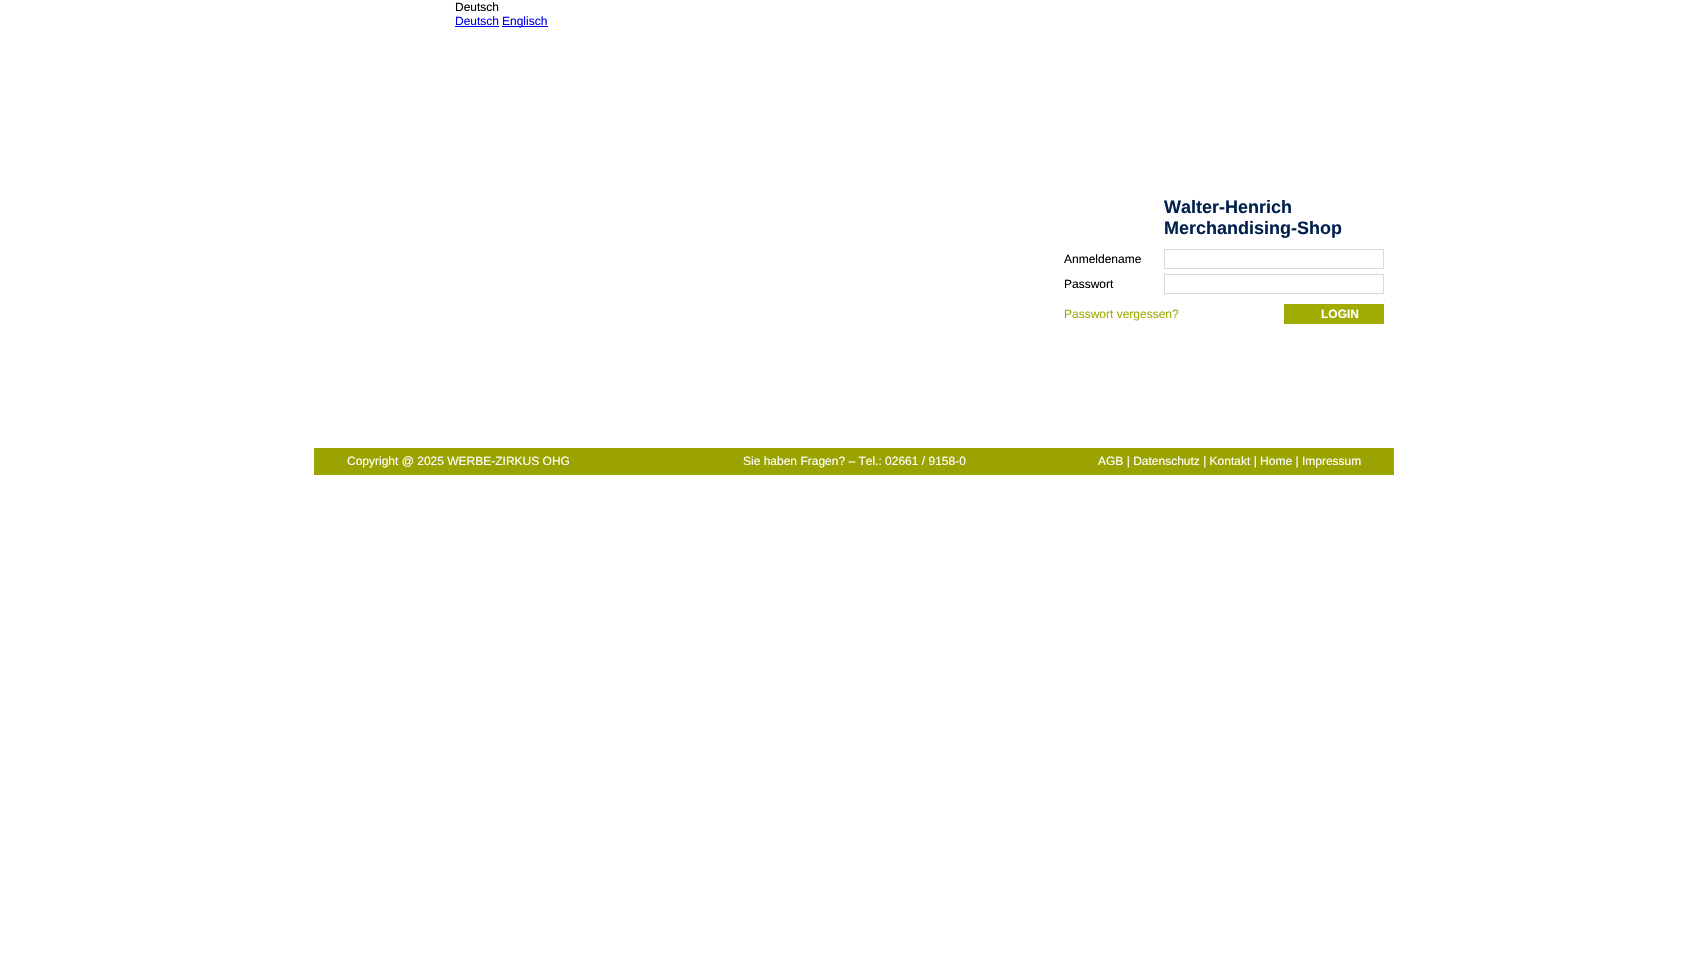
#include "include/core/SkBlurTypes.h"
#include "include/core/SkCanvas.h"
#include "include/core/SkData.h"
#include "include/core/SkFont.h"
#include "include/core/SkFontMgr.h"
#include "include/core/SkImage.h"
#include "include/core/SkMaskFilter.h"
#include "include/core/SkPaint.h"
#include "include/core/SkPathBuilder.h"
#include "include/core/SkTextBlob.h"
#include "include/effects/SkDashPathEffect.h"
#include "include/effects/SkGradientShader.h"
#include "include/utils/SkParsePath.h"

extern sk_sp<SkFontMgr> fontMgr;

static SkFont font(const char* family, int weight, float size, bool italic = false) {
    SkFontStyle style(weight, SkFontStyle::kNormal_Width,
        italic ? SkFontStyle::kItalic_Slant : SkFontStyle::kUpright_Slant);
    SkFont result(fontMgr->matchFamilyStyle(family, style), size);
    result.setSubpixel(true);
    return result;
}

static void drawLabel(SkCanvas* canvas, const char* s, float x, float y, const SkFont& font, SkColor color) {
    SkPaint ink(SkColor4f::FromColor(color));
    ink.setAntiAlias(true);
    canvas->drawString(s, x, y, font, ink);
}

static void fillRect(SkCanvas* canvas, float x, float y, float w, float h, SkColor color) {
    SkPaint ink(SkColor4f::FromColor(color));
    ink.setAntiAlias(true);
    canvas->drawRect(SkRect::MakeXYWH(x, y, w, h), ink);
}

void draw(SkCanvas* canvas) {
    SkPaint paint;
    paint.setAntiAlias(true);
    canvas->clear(0xFFFFFFFF);
    SkFont font1 = font("Liberation Sans", 400, 12);
    drawLabel(canvas, "Deutsch", 455, 11, font1, 0xFF000000);
    drawLabel(canvas, "Deutsch", 455, 25, font1, 0xFF0000EE);
    fillRect(canvas, 455, 26, 44, 1, 0xFF0000EE);
    fillRect(canvas, 502, 26, 46, 1, 0xFF0000EE);
    drawLabel(canvas, "Englisch", 502, 25, font1, 0xFF0000EE);
    SkFont font2 = font("Liberation Sans", 700, 18);
    drawLabel(canvas, "Walter-Henrich", 1164, 213, font2, 0xFF00204E);
    drawLabel(canvas, "Merchandising-Shop", 1164, 234, font2, 0xFF00204E);
    drawLabel(canvas, "Anmeldename", 1064, 263, font1, 0xFF000000);
    paint.setStroke(true);
    paint.setStrokeWidth(1);
    paint.setColor(0xFFDADADA);
    canvas->drawRect(SkRect::MakeXYWH(1164.5f, 249.5f, 219, 19), paint);
    drawLabel(canvas, "Passwort", 1064, 288, font1, 0xFF000000);
    canvas->drawRect(SkRect::MakeXYWH(1164.5f, 274.5f, 219, 19), paint);
    drawLabel(canvas, "Passwort vergessen?", 1064, 318, font1, 0xFFA0AC02);
    fillRect(canvas, 1284, 304, 100, 20, 0xFFA0AC02);
    SkFont font3 = font("Liberation Sans", 700, 12);
    drawLabel(canvas, "LOGIN", 1321, 318, font3, 0xFFFFFFFF);
    canvas->save();
    canvas->clipRect(SkRect::MakeXYWH(1384, 299, 1, 1));
    canvas->drawRect(SkRect::MakeXYWH(1384.5f, 299.5f, 212, 17), paint);
    canvas->restore();
    fillRect(canvas, 314, 448, 1080, 27, 0xFF9AA302);
    drawLabel(canvas, "Copyright @ 2025 WERBE-ZIRKUS OHG", 347, 465, font1, 0xFFFFFFFF);
    drawLabel(canvas, "Sie haben Fragen? – Tel.: 02661 / 9158-0", 743, 465, font1, 0xFFFFFFFF);
    drawLabel(canvas, "AGB | Datenschutz | Kontakt | Home | Impressum", 1098, 465, font1, 0xFFFFFFFF);
}
